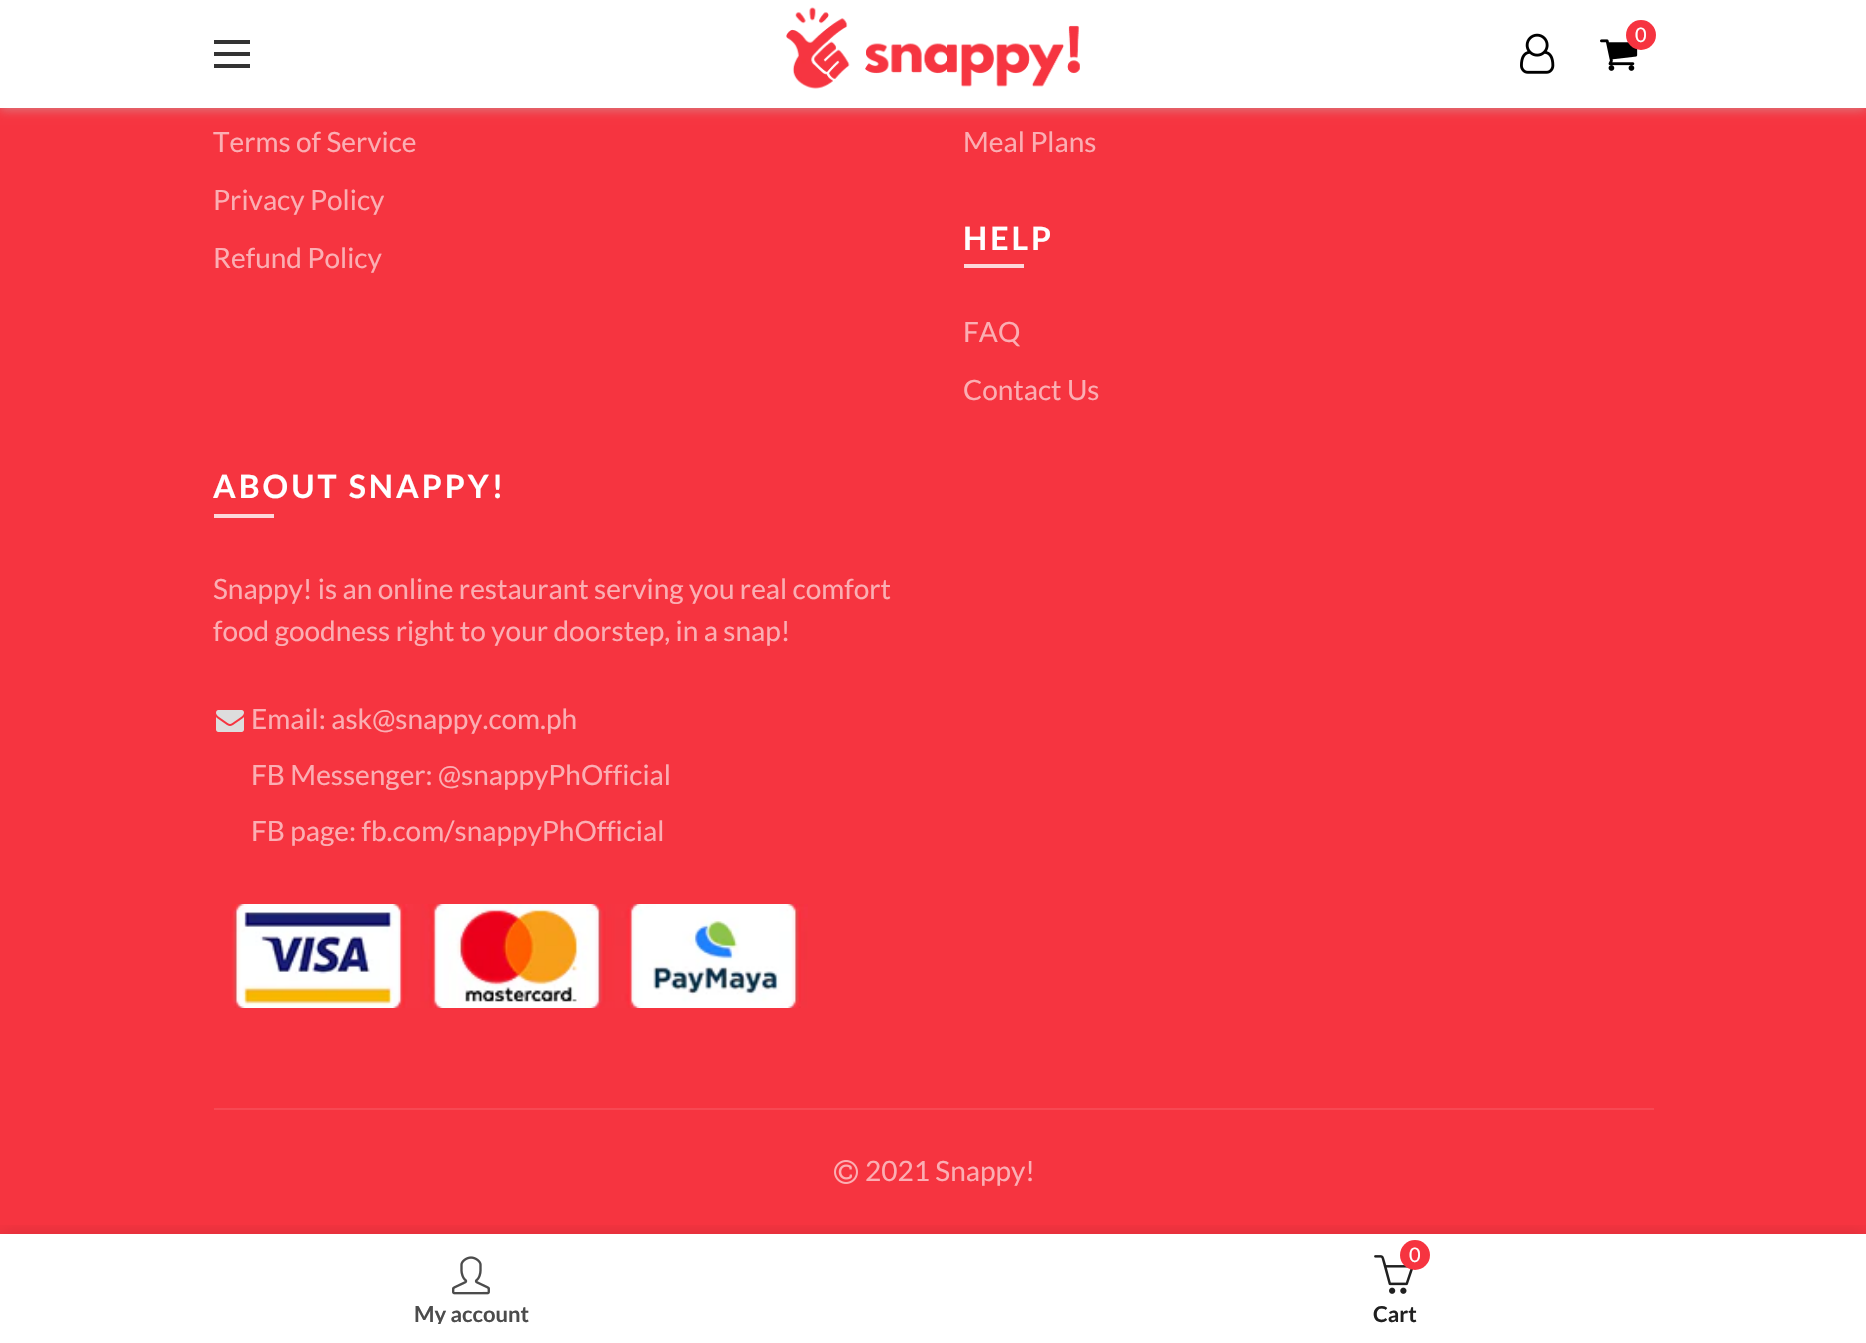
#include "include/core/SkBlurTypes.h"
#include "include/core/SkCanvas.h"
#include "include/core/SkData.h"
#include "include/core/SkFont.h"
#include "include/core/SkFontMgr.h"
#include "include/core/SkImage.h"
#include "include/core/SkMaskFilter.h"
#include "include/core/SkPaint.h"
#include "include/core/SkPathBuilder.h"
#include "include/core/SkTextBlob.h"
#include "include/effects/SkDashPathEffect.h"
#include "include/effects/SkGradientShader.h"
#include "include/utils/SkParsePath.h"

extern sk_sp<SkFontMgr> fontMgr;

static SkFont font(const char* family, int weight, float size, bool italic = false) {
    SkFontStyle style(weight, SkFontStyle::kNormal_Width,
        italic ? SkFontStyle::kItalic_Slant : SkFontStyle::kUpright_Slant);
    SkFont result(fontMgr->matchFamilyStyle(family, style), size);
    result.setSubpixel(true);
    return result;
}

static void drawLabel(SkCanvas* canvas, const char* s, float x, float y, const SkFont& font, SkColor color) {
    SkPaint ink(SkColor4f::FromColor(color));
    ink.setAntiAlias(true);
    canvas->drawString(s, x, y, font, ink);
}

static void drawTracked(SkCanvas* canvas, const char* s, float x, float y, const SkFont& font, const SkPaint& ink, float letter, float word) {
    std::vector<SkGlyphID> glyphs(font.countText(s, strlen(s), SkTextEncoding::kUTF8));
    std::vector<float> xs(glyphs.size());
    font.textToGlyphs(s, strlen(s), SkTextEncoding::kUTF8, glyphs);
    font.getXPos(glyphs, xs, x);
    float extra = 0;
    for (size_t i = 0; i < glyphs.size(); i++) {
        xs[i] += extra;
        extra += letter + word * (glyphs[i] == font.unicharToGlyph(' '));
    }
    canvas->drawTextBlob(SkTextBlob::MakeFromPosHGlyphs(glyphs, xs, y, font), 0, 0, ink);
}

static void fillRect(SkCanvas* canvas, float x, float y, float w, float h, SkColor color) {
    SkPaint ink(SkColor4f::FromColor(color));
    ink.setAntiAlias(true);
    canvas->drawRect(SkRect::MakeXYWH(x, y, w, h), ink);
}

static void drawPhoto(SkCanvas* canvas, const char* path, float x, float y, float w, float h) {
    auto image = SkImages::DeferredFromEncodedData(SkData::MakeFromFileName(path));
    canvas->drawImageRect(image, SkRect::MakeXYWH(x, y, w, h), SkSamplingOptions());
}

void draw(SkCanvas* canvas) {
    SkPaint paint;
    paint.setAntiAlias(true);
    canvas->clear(0xFFFFFFFF);
    fillRect(canvas, 0, 108, 1866, 1126, 0xFFF63440);
    paint.setColor(0x80BEBEBE);
    paint.setMaskFilter(SkMaskFilter::MakeBlur(kNormal_SkBlurStyle, 5));
    canvas->drawRect(SkRect::MakeXYWH(0, 2, 1866, 108), paint);
    paint.setMaskFilter(nullptr);
    fillRect(canvas, 0, 0, 1866, 108, 0xFFFFFFFF);
    drawPhoto(canvas, "assets/img1.png", 786, 7, 294, 82);
    drawPhoto(canvas, "assets/img2.png", 1520, 33, 35, 41);
    drawPhoto(canvas, "assets/img3.png", 1600, 39, 38, 32);
    paint.setColor(0xFFF63440);
    canvas->drawCircle(1641, 35, 15, paint);
    SkFont font1 = font("Lato", 400, 20);
    drawLabel(canvas, "0", 1635, 42, font1, 0xFFFFFFFF);
    fillRect(canvas, 214, 52, 36, 4, 0xFF333333);
    fillRect(canvas, 214, 40, 36, 4, 0xFF333333);
    fillRect(canvas, 214, 64, 36, 4, 0xFF333333);
    SkFont font2 = font("Lato", 400, 28);
    drawLabel(canvas, "Terms of Service", 213, 152, font2, 0xFFFBAEB3);
    drawLabel(canvas, "Privacy Policy", 213, 210, font2, 0xFFFBAEB3);
    drawLabel(canvas, "Refund Policy", 213, 268, font2, 0xFFFBAEB3);
    drawLabel(canvas, "Meal Plans", 963, 152, font2, 0xFFFBAEB3);
    SkFont font3 = font("Lato", 700, 32);
    paint.setColor(0xFFFFFFFF);
    drawTracked(canvas, "HELP", 963, 250, font3, paint, 3, 0);
    fillRect(canvas, 964, 264, 60, 4, 0xFFFDD6D9);
    drawLabel(canvas, "FAQ", 963, 342, font2, 0xFFFBAEB3);
    drawLabel(canvas, "Contact Us", 963, 400, font2, 0xFFFBAEB3);
    drawTracked(canvas, "ABOUT SNAPPY!", 213, 498, font3, paint, 3, 0);
    fillRect(canvas, 214, 514, 60, 4, 0xFFFDD6D9);
    drawLabel(canvas, "Snappy! is an online restaurant serving you real comfort", 213, 599, font2, 0xFFFBAEB3);
    drawLabel(canvas, "food goodness right to your doorstep, in a snap!", 213, 641, font2, 0xFFFBAEB3);
    drawPhoto(canvas, "assets/img4.png", 216, 710, 28, 22);
    drawLabel(canvas, "Email: ask@snappy.com.ph", 251, 729, font2, 0xFFFBAEB3);
    drawLabel(canvas, "FB Messenger: @snappyPhOfficial", 251, 785, font2, 0xFFFBAEB3);
    drawLabel(canvas, "FB page: fb.com/snappyPhOfficial", 251, 841, font2, 0xFFFBAEB3);
    drawPhoto(canvas, "assets/img5.png", 230, 904, 578, 104);
    fillRect(canvas, 214, 1108, 1440, 2, 0xFFF74853);
    drawPhoto(canvas, "assets/img6.png", 834, 1160, 24, 24);
    drawLabel(canvas, "2021 Snappy!", 865, 1181, font2, 0xFFFBAEB3);
    canvas->save();
    canvas->clipRect(SkRect::MakeXYWH(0, 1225, 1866, 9));
    paint.setColor(0x1F000000);
    paint.setMaskFilter(SkMaskFilter::MakeBlur(kNormal_SkBlurStyle, 9));
    canvas->drawRect(SkRect::MakeXYWH(0, 1234, 1866, 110), paint);
    paint.setMaskFilter(nullptr);
    canvas->restore();
    drawPhoto(canvas, "assets/img7.png", 452, 1256, 38, 39);
    canvas->save();
    canvas->clipRect(SkRect::MakeXYWH(30, 1302, 884, 22));
    SkFont font4 = font("Lato", 700, 22);
    drawLabel(canvas, "My account", 414, 1322, font4, 0xFF4C4C4C);
    canvas->restore();
    drawPhoto(canvas, "assets/img8.png", 1374, 1255, 39, 39);
    paint.setColor(0xFFF63440);
    canvas->drawCircle(1415, 1255, 15, paint);
    drawLabel(canvas, "0", 1409, 1262, font1, 0xFFFFFFFF);
    drawLabel(canvas, "Cart", 1373, 1322, font4, 0xFF202020);
}
